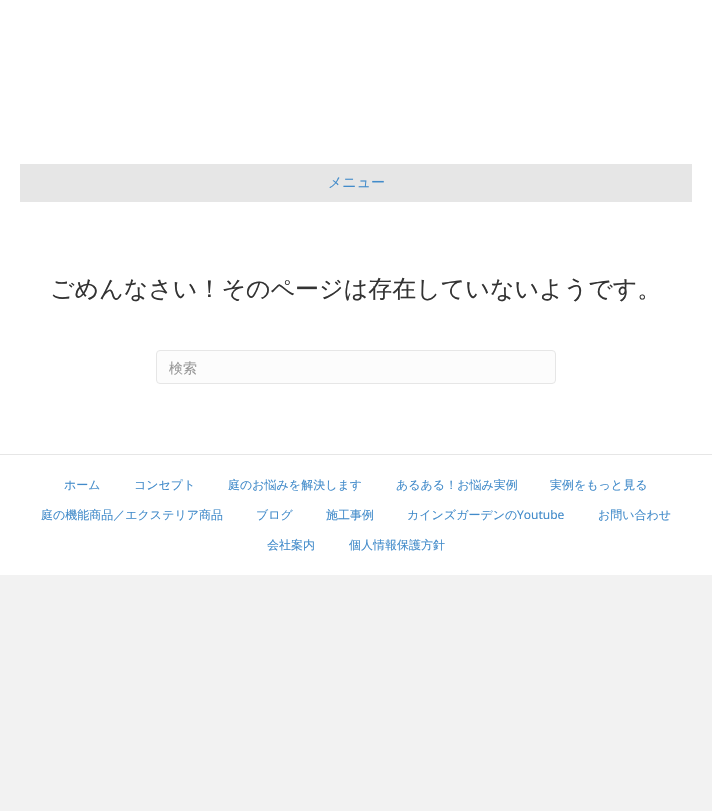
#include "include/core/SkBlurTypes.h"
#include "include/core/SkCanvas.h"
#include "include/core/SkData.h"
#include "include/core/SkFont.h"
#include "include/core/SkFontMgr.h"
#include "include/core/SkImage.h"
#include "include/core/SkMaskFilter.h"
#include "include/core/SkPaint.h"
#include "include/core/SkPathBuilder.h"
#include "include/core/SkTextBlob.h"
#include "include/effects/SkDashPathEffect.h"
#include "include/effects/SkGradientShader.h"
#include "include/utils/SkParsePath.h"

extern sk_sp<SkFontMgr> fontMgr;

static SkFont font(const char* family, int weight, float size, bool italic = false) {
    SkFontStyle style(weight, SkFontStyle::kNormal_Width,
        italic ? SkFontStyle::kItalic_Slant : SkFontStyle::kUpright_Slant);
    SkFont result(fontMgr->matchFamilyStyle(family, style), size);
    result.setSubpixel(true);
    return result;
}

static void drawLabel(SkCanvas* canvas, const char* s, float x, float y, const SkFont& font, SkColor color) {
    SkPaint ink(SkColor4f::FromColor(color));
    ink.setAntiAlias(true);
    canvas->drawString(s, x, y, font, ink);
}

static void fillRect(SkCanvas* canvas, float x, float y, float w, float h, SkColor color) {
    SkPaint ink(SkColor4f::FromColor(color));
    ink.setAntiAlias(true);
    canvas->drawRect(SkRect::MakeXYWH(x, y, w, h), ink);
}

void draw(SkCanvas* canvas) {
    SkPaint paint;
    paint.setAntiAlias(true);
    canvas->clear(0xFFF2F2F2);
    fillRect(canvas, 0, 0, 712, 454, 0xFFFFFFFF);
    fillRect(canvas, 20, 164, 672, 38, 0xFFE6E6E6);
    SkFont font1 = font("WenQuanYi Zen Hei", 500, 14);
    drawLabel(canvas, "メニュー", 328, 187, font1, 0xFF428BCA);
    SkFont font2 = font("WenQuanYi Zen Hei", 500, 24);
    drawLabel(canvas, "ごめんなさい！そのページは存在していないようです。", 50, 297, font2, 0xFF333333);
    paint.setColor(0xFFFCFCFC);
    canvas->drawRoundRect(SkRect::MakeXYWH(156.5f, 350.5f, 399, 33), 3.5f, 3.5f, paint);
    paint.setStroke(true);
    paint.setStrokeWidth(1);
    paint.setColor(0xFFE6E6E6);
    canvas->drawRoundRect(SkRect::MakeXYWH(156.5f, 350.5f, 399, 33), 3.5f, 3.5f, paint);
    drawLabel(canvas, "検索", 169, 373, font1, 0xFF979797);
    fillRect(canvas, 0, 455, 712, 120, 0xFFFFFFFF);
    fillRect(canvas, 0, 454, 712, 1, 0xFFE6E6E6);
    SkFont font3 = font("WenQuanYi Zen Hei", 500, 12);
    drawLabel(canvas, "ホーム", 64, 489, font3, 0xFF428BCA);
    drawLabel(canvas, "コンセプト", 134, 489, font3, 0xFF428BCA);
    drawLabel(canvas, "庭のお悩みを解決します", 228, 489, font3, 0xFF428BCA);
    drawLabel(canvas, "あるある！お悩み実例", 396, 489, font3, 0xFF428BCA);
    drawLabel(canvas, "実例をもっと見る", 550, 489, font3, 0xFF428BCA);
    drawLabel(canvas, "庭の機能商品／エクステリア商品", 41, 519, font3, 0xFF428BCA);
    drawLabel(canvas, "ブログ", 256, 519, font3, 0xFF428BCA);
    drawLabel(canvas, "施工事例", 326, 519, font3, 0xFF428BCA);
    drawLabel(canvas, "カインズガーデンの", 407, 519, font3, 0xFF428BCA);
    SkFont font4 = font("Noto Sans", 400, 12);
    drawLabel(canvas, "Youtube", 517, 519, font4, 0xFF428BCA);
    drawLabel(canvas, "お問い合わせ", 598, 519, font3, 0xFF428BCA);
    drawLabel(canvas, "会社案内", 267, 549, font3, 0xFF428BCA);
    drawLabel(canvas, "個人情報保護方針", 349, 549, font3, 0xFF428BCA);
}
